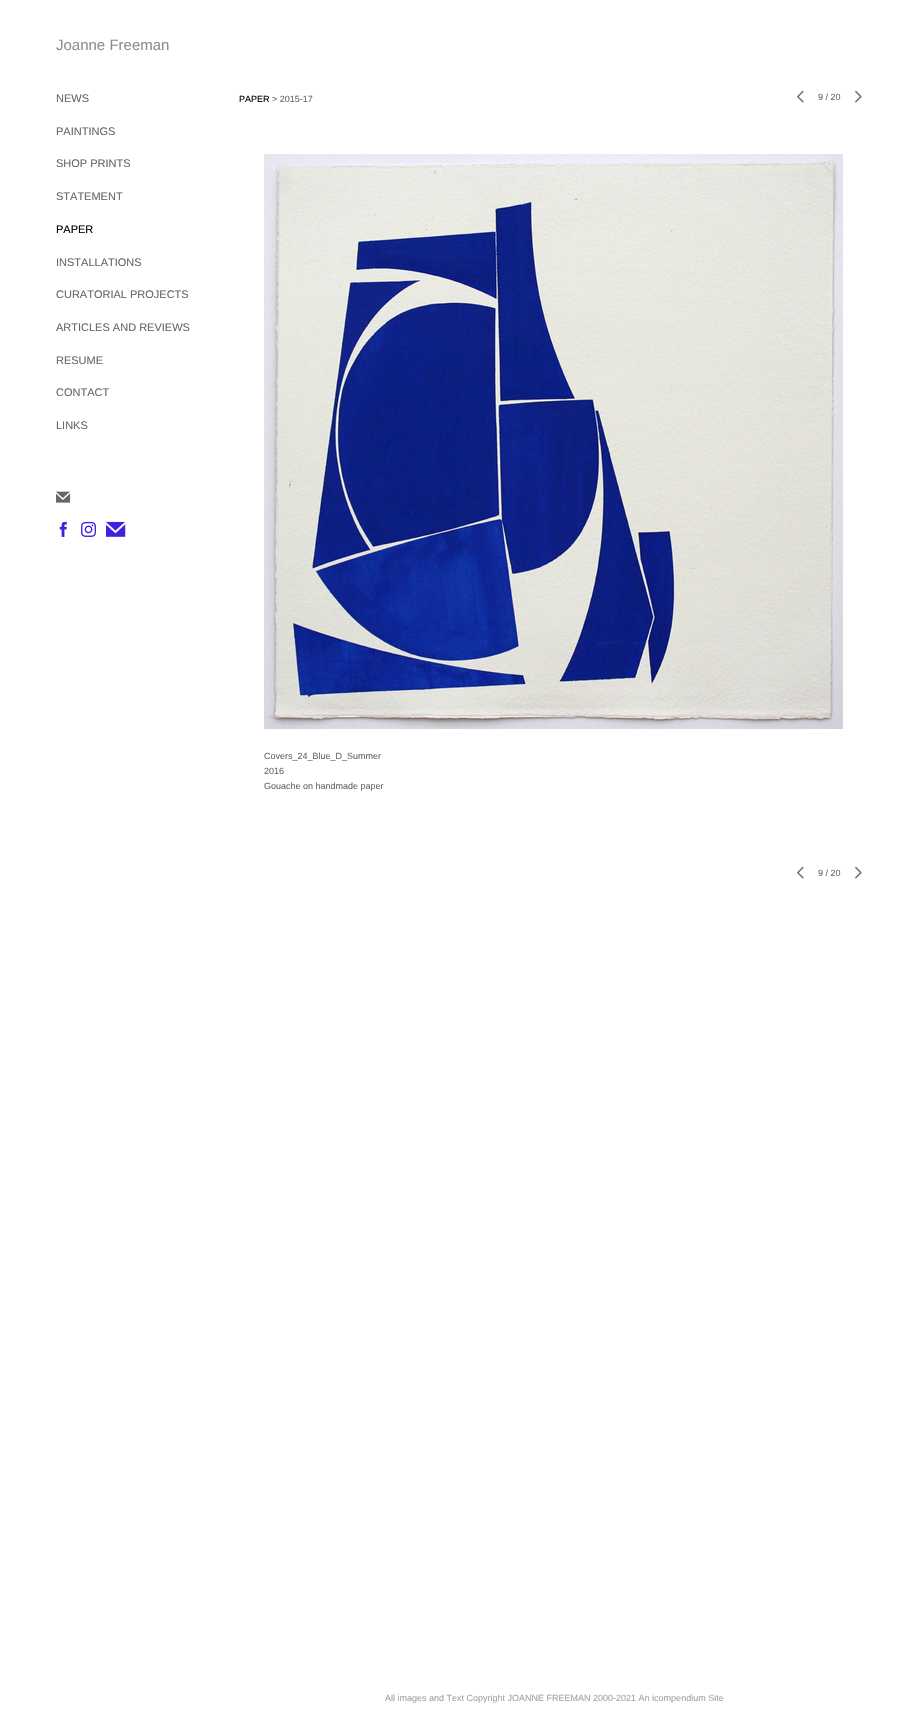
#include "include/core/SkBlurTypes.h"
#include "include/core/SkCanvas.h"
#include "include/core/SkData.h"
#include "include/core/SkFont.h"
#include "include/core/SkFontMgr.h"
#include "include/core/SkImage.h"
#include "include/core/SkMaskFilter.h"
#include "include/core/SkPaint.h"
#include "include/core/SkPathBuilder.h"
#include "include/core/SkTextBlob.h"
#include "include/effects/SkDashPathEffect.h"
#include "include/effects/SkGradientShader.h"
#include "include/utils/SkParsePath.h"

extern sk_sp<SkFontMgr> fontMgr;

static SkFont font(const char* family, int weight, float size, bool italic = false) {
    SkFontStyle style(weight, SkFontStyle::kNormal_Width,
        italic ? SkFontStyle::kItalic_Slant : SkFontStyle::kUpright_Slant);
    SkFont result(fontMgr->matchFamilyStyle(family, style), size);
    result.setSubpixel(true);
    return result;
}

static void drawLabel(SkCanvas* canvas, const char* s, float x, float y, const SkFont& font, SkColor color) {
    SkPaint ink(SkColor4f::FromColor(color));
    ink.setAntiAlias(true);
    canvas->drawString(s, x, y, font, ink);
}

static void drawPhoto(SkCanvas* canvas, const char* path, float x, float y, float w, float h) {
    auto image = SkImages::DeferredFromEncodedData(SkData::MakeFromFileName(path));
    canvas->drawImageRect(image, SkRect::MakeXYWH(x, y, w, h), SkSamplingOptions());
}

void draw(SkCanvas* canvas) {
    SkPaint paint;
    paint.setAntiAlias(true);
    canvas->clear(0xFFFFFFFF);
    SkFont font1 = font("Liberation Sans", 400, 15);
    drawLabel(canvas, "Joanne Freeman", 56, 50, font1, 0xFF8E8E8E);
    SkFont font2 = font("Liberation Sans", 400, 11);
    drawLabel(canvas, "NEWS", 56, 102, font2, 0xFF666666);
    drawLabel(canvas, "PAINTINGS", 56, 135, font2, 0xFF666666);
    drawLabel(canvas, "SHOP PRINTS", 56, 167, font2, 0xFF666666);
    drawLabel(canvas, "STATEMENT", 56, 200, font2, 0xFF666666);
    drawLabel(canvas, "PAPER", 56, 233, font2, 0xFF000000);
    drawLabel(canvas, "INSTALLATIONS", 56, 266, font2, 0xFF666666);
    drawLabel(canvas, "CURATORIAL PROJECTS", 56, 298, font2, 0xFF666666);
    drawLabel(canvas, "ARTICLES AND REVIEWS", 56, 331, font2, 0xFF666666);
    drawLabel(canvas, "RESUME", 56, 364, font2, 0xFF666666);
    drawLabel(canvas, "CONTACT", 56, 396, font2, 0xFF666666);
    drawLabel(canvas, "LINKS", 56, 429, font2, 0xFF666666);
    drawPhoto(canvas, "assets/img1.png", 56, 491, 15, 12);
    drawPhoto(canvas, "assets/img2.png", 59, 521, 8, 16);
    drawPhoto(canvas, "assets/img3.png", 81, 521, 15, 16);
    drawPhoto(canvas, "assets/img4.png", 106, 521, 20, 16);
    SkFont font3 = font("Liberation Sans", 400, 9);
    drawLabel(canvas, "PAPER", 239, 102, font3, 0xFF000000);
    drawLabel(canvas, "> 2015-17", 272, 102, font3, 0xFF666666);
    drawPhoto(canvas, "assets/img5.png", 797, 90, 7, 13);
    drawLabel(canvas, "9 / 20", 818, 100, font3, 0xFF666666);
    drawPhoto(canvas, "assets/img6.png", 855, 90, 7, 13);
    drawPhoto(canvas, "assets/img7.png", 264, 154, 579, 575);
    drawLabel(canvas, "Covers_24_Blue_D_Summer", 264, 759, font3, 0xFF666666);
    drawLabel(canvas, "2016", 264, 774, font3, 0xFF666666);
    drawLabel(canvas, "Gouache on handmade paper", 264, 789, font3, 0xFF666666);
    drawPhoto(canvas, "assets/img5.png", 797, 866, 7, 13);
    drawLabel(canvas, "9 / 20", 818, 876, font3, 0xFF666666);
    drawPhoto(canvas, "assets/img6.png", 855, 866, 7, 13);
    drawLabel(canvas, "All images and Text Copyright JOANNE FREEMAN 2000-2021 An icompendium Site", 385, 1701, font3, 0xFFA4A4A4);
}
